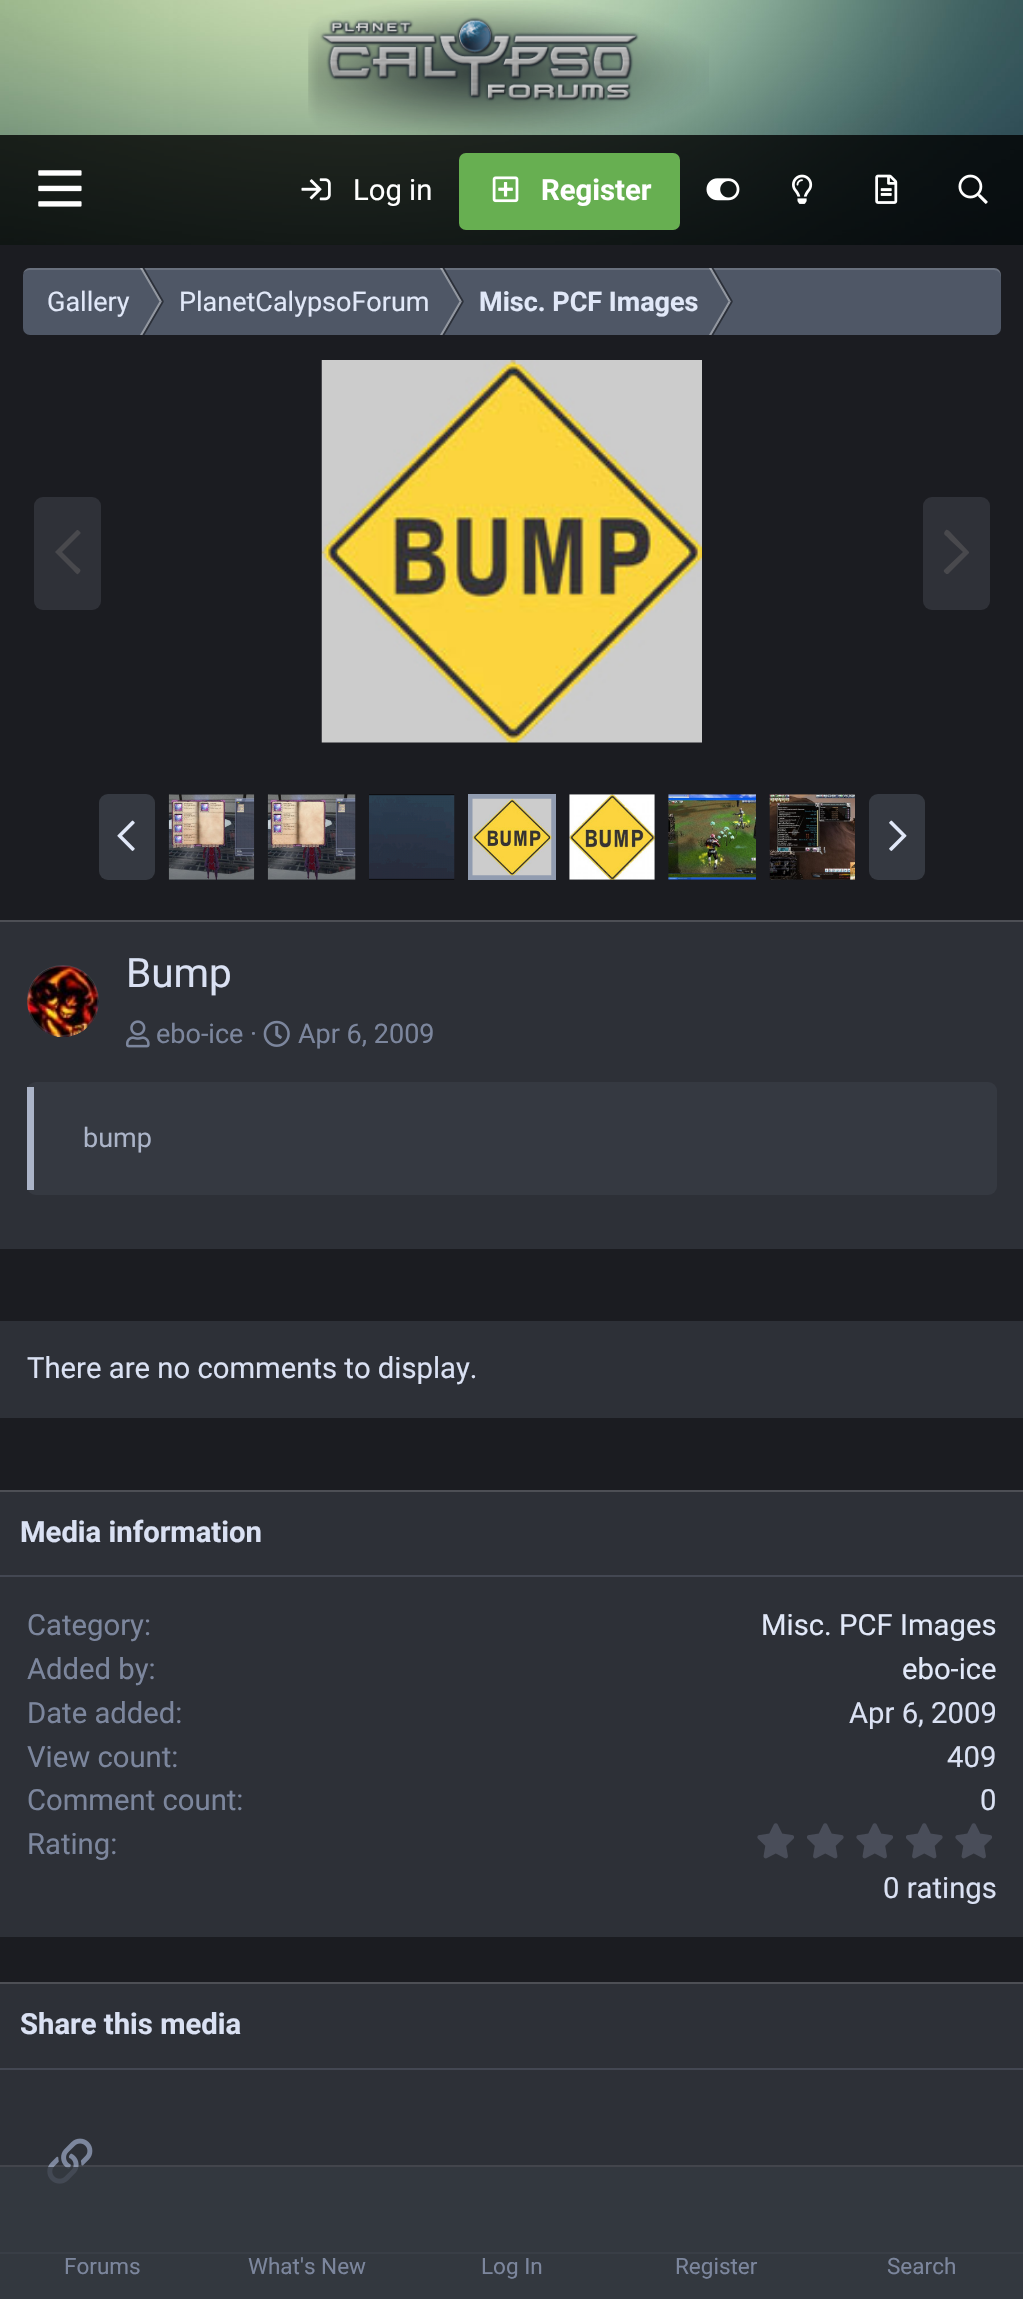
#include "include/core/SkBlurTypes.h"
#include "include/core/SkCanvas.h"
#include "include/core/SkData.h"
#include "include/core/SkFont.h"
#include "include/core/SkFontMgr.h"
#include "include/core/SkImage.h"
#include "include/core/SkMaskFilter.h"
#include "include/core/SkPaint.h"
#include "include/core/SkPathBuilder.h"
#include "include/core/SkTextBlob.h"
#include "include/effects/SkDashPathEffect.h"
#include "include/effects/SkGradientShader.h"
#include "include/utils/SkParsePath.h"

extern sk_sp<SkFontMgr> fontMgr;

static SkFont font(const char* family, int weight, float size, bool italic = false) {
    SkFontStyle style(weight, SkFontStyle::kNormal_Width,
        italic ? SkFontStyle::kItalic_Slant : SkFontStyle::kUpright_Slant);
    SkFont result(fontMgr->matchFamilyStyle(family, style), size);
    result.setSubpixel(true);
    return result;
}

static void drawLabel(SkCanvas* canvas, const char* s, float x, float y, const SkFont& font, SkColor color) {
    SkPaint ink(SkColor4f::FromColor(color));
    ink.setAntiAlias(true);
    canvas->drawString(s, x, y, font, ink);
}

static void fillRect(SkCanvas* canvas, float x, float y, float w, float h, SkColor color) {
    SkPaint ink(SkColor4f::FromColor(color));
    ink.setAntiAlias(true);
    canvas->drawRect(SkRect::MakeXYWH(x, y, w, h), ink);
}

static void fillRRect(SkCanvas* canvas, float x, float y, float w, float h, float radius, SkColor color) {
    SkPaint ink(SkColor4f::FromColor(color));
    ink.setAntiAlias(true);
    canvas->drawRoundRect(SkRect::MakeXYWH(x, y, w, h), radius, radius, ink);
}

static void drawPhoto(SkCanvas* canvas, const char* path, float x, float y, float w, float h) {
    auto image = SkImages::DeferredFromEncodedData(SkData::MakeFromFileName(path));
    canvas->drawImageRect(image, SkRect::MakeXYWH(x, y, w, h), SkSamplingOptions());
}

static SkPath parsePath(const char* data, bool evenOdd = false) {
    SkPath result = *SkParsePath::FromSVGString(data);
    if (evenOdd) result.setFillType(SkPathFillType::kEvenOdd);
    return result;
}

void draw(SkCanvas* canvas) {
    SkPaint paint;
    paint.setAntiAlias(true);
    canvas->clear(0xFFFFFFFF);
    drawPhoto(canvas, "assets/img1.png", 0, 0, 1023, 245);
    drawPhoto(canvas, "assets/img2.png", 308, 1, 401, 134);
    paint.setColor(0x0F000000);
    paint.setMaskFilter(SkMaskFilter::MakeBlur(kNormal_SkBlurStyle, 22.5f));
    canvas->drawRect(SkRect::MakeXYWH(0, 245, 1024, 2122), paint);
    paint.setMaskFilter(nullptr);
    fillRect(canvas, 0, 135, 1023, 110, 0xCC000000);
    drawPhoto(canvas, "assets/img3.png", 38, 170, 44, 37);
    drawPhoto(canvas, "assets/img4.png", 301, 178, 30, 23);
    SkFont font1 = font("Roboto", 400, 29.25f);
    drawLabel(canvas, "Log in", 353, 200, font1, 0xFFFFFFFF);
    fillRRect(canvas, 459, 153, 221, 77, 7, 0xFF67AF51);
    drawPhoto(canvas, "assets/img5.png", 492, 176, 27, 27);
    SkFont font2 = font("Roboto", 700, 29.25f);
    drawLabel(canvas, "Register", 541, 200, font2, 0xFFFFFFFF);
    drawPhoto(canvas, "assets/img6.png", 706, 178, 34, 23);
    drawPhoto(canvas, "assets/img7.png", 792, 174, 21, 30);
    drawPhoto(canvas, "assets/img8.png", 875, 174, 23, 30);
    drawPhoto(canvas, "assets/img9.png", 958, 174, 30, 30);
    fillRect(canvas, 0, 245, 1023, 1737, 0xFF1B1C21);
    fillRRect(canvas, 23, 268, 978, 67, 7, 0xFF4F5766);
    paint.setColor(0x26FFFFFF);
    canvas->drawPath(parsePath("M29 270H994C998 270 1001 273 1001 277V275C1001 271 998 268 994 268H30C27 268 24 270 23 273C25 271 27 270 29 270Z"), paint);
    SkFont font3 = font("Roboto", 400, 27);
    drawLabel(canvas, "Gallery", 47, 311, font3, 0xFFE1E8F8);
    paint.setColor(0x61FFFFFF);
    canvas->drawPath(parsePath("M140 268H142.5L162 301.5H159.5Z"), paint);
    paint.setColor(0xCC22262D);
    canvas->drawPath(parsePath("M142.5 268H144.5L164 301.5H162Z"), paint);
    paint.setColor(0xFF9297A0);
    canvas->drawPath(parsePath("M159.5 301.5H162L142.5 335H140Z"), paint);
    paint.setColor(0xCC22262D);
    canvas->drawPath(parsePath("M162 301.5H164L144.5 335H142.5Z"), paint);
    drawLabel(canvas, "PlanetCalypsoForum", 179, 311, font3, 0xFFE1E8F8);
    paint.setColor(0x61FFFFFF);
    canvas->drawPath(parsePath("M440 268H442.5L462 301.5H459.5Z"), paint);
    paint.setColor(0xCC22262D);
    canvas->drawPath(parsePath("M442.5 268H444.5L464 301.5H462Z"), paint);
    paint.setColor(0xFF9297A0);
    canvas->drawPath(parsePath("M459.5 301.5H462L442.5 335H440Z"), paint);
    paint.setColor(0xCC22262D);
    canvas->drawPath(parsePath("M462 301.5H464L444.5 335H442.5Z"), paint);
    SkFont font4 = font("Roboto", 700, 27);
    drawLabel(canvas, "Misc. PCF Images", 479, 311, font4, 0xFFE1E8F8);
    paint.setColor(0x61FFFFFF);
    canvas->drawPath(parsePath("M709 268H711.5L731 301.5H728.5Z"), paint);
    paint.setColor(0xCC22262D);
    canvas->drawPath(parsePath("M711.5 268H713.5L733 301.5H731Z"), paint);
    paint.setColor(0xFF9297A0);
    canvas->drawPath(parsePath("M728.5 301.5H731L711.5 335H709Z"), paint);
    paint.setColor(0xCC22262D);
    canvas->drawPath(parsePath("M731 301.5H733L713.5 335H711.5Z"), paint);
    fillRRect(canvas, 34, 497, 67, 113, 9, 0xFF2F3138);
    paint.setColor(0xFF49494D);
    canvas->drawPath(parsePath("M78 574C77 575 75 572 73 570L55 552L56 551L77 530H78C79 531 82 533 80 534L62 552L74 564C80 570 83 569 78 574Z"), paint);
    drawPhoto(canvas, "assets/img10.png", 321, 360, 381, 383);
    fillRRect(canvas, 923, 497, 67, 113, 9, 0xFF2F3138);
    canvas->drawPath(parsePath("M946 530C948 529 950 532 952 534L969 552V553L948 574H946C946 573 943 572 944 570L963 552L950 540C945 534 942 535 946 530Z"), paint);
    fillRRect(canvas, 99, 794, 56, 86, 9, 0xFF353941);
    drawPhoto(canvas, "assets/img11.png", 117, 820, 18, 31);
    drawPhoto(canvas, "assets/img12.png", 168, 794, 87, 86);
    drawPhoto(canvas, "assets/img13.png", 267, 794, 89, 86);
    drawPhoto(canvas, "assets/img14.png", 369, 794, 86, 86);
    paint.setStroke(true);
    paint.setStrokeWidth(5);
    paint.setColor(0xFF919CB0);
    canvas->drawRect(SkRect::MakeXYWH(470.5f, 796.5f, 83, 81), paint);
    drawPhoto(canvas, "assets/img15.png", 472, 798, 80, 78);
    drawPhoto(canvas, "assets/img16.png", 569, 794, 86, 86);
    drawPhoto(canvas, "assets/img17.png", 668, 794, 88, 86);
    drawPhoto(canvas, "assets/img18.png", 769, 794, 86, 86);
    fillRRect(canvas, 869, 794, 56, 86, 9, 0xFF353941);
    drawPhoto(canvas, "assets/img19.png", 889, 820, 18, 31);
    fillRect(canvas, 0, 922, 1023, 327, 0xFF2D3037);
    fillRect(canvas, 0, 920, 1023, 2, 0xFF4D4F55);
    drawPhoto(canvas, "assets/img20.png", 27, 965, 72, 72);
    paint.setStrokeWidth(2);
    paint.setColor(0x26DAE1F3);
    canvas->drawCircle(63, 1001, 35, paint);
    SkFont font5 = font("Roboto", 400, 40.5f);
    drawLabel(canvas, "Bump", 126, 987, font5, 0xFFDAE1F3);
    drawPhoto(canvas, "assets/img21.png", 126, 1020, 24, 28);
    drawLabel(canvas, "ebo-ice ·", 156, 1043, font3, 0xFF7C869D);
    drawPhoto(canvas, "assets/img22.png", 263, 1020, 27, 27);
    drawLabel(canvas, "Apr 6, 2009", 298, 1043, font3, 0xFF7C869D);
    fillRRect(canvas, 27, 1082, 970, 113, 9, 0xFF353941);
    fillRect(canvas, 27, 1087, 7, 103, 0xFFABB4C8);
    drawLabel(canvas, "bump", 83, 1147, font3, 0xFFABB4C8);
    fillRect(canvas, 0, 1321, 1023, 97, 0xFF2D3037);
    drawLabel(canvas, "There are no comments to display.", 27, 1378, font1, 0xFFDAE1F3);
    fillRect(canvas, 0, 1492, 1023, 445, 0xFF2D3037);
    fillRect(canvas, 0, 1490, 1023, 2, 0xFF4D4F55);
    fillRect(canvas, 0, 1575, 1023, 2, 0xFF434752);
    drawLabel(canvas, "Media information", 20, 1542, font2, 0xFFDAE1F3);
    drawLabel(canvas, "Category:", 27, 1635, font1, 0xFF7C869D);
    drawLabel(canvas, "Misc. PCF Images", 761, 1635, font1, 0xFFE1E8F8);
    drawLabel(canvas, "Added by:", 27, 1679, font1, 0xFF7C869D);
    drawLabel(canvas, "ebo-ice", 902, 1679, font1, 0xFFE1E8F8);
    drawLabel(canvas, "Date added:", 27, 1723, font1, 0xFF7C869D);
    drawLabel(canvas, "Apr 6, 2009", 849, 1723, font1, 0xFFDAE1F3);
    drawLabel(canvas, "View count:", 27, 1767, font1, 0xFF7C869D);
    drawLabel(canvas, "409", 947, 1767, font1, 0xFFDAE1F3);
    drawLabel(canvas, "Comment count:", 27, 1810, font1, 0xFF7C869D);
    drawLabel(canvas, "0", 980, 1810, font1, 0xFFDAE1F3);
    drawLabel(canvas, "Rating:", 27, 1854, font1, 0xFF7C869D);
    drawPhoto(canvas, "assets/img23.png", 757, 1823, 37, 36);
    drawPhoto(canvas, "assets/img24.png", 807, 1823, 37, 36);
    drawPhoto(canvas, "assets/img23.png", 856, 1823, 37, 36);
    drawPhoto(canvas, "assets/img24.png", 906, 1823, 37, 36);
    drawPhoto(canvas, "assets/img23.png", 955, 1823, 37, 36);
    drawLabel(canvas, "0 ratings", 883, 1898, font1, 0xFFDAE1F3);
    fillRect(canvas, 0, 1984, 1023, 315, 0xFF2D3037);
    fillRect(canvas, 0, 1982, 1023, 2, 0xFF4D4F55);
    fillRect(canvas, 0, 2068, 1023, 2, 0xFF434752);
    drawLabel(canvas, "Share this media", 20, 2034, font2, 0xFFDAE1F3);
    drawPhoto(canvas, "assets/img25.png", 47, 2138, 46, 46);
    fillRect(canvas, 0, 2252, 1023, 2, 0xFF494D59);
    paint.setStroke(false);
    paint.setColor(0x1AFFFFFF);
    canvas->drawPath(parsePath("M0 2165V2167H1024V2297V2165Z"), paint);
    fillRect(canvas, 0, 2167, 1023, 132, 0xCC353941);
    SkFont font6 = font("Roboto", 400, 22.5f);
    drawLabel(canvas, "Forums", 64, 2274, font6, 0xFF7C869D);
    drawLabel(canvas, "What's New", 248, 2274, font6, 0xFF7C869D);
    drawLabel(canvas, "Log In", 481, 2274, font6, 0xFF7C869D);
    drawLabel(canvas, "Register", 675, 2274, font6, 0xFF7C869D);
    drawLabel(canvas, "Search", 887, 2274, font6, 0xFF7C869D);
}
